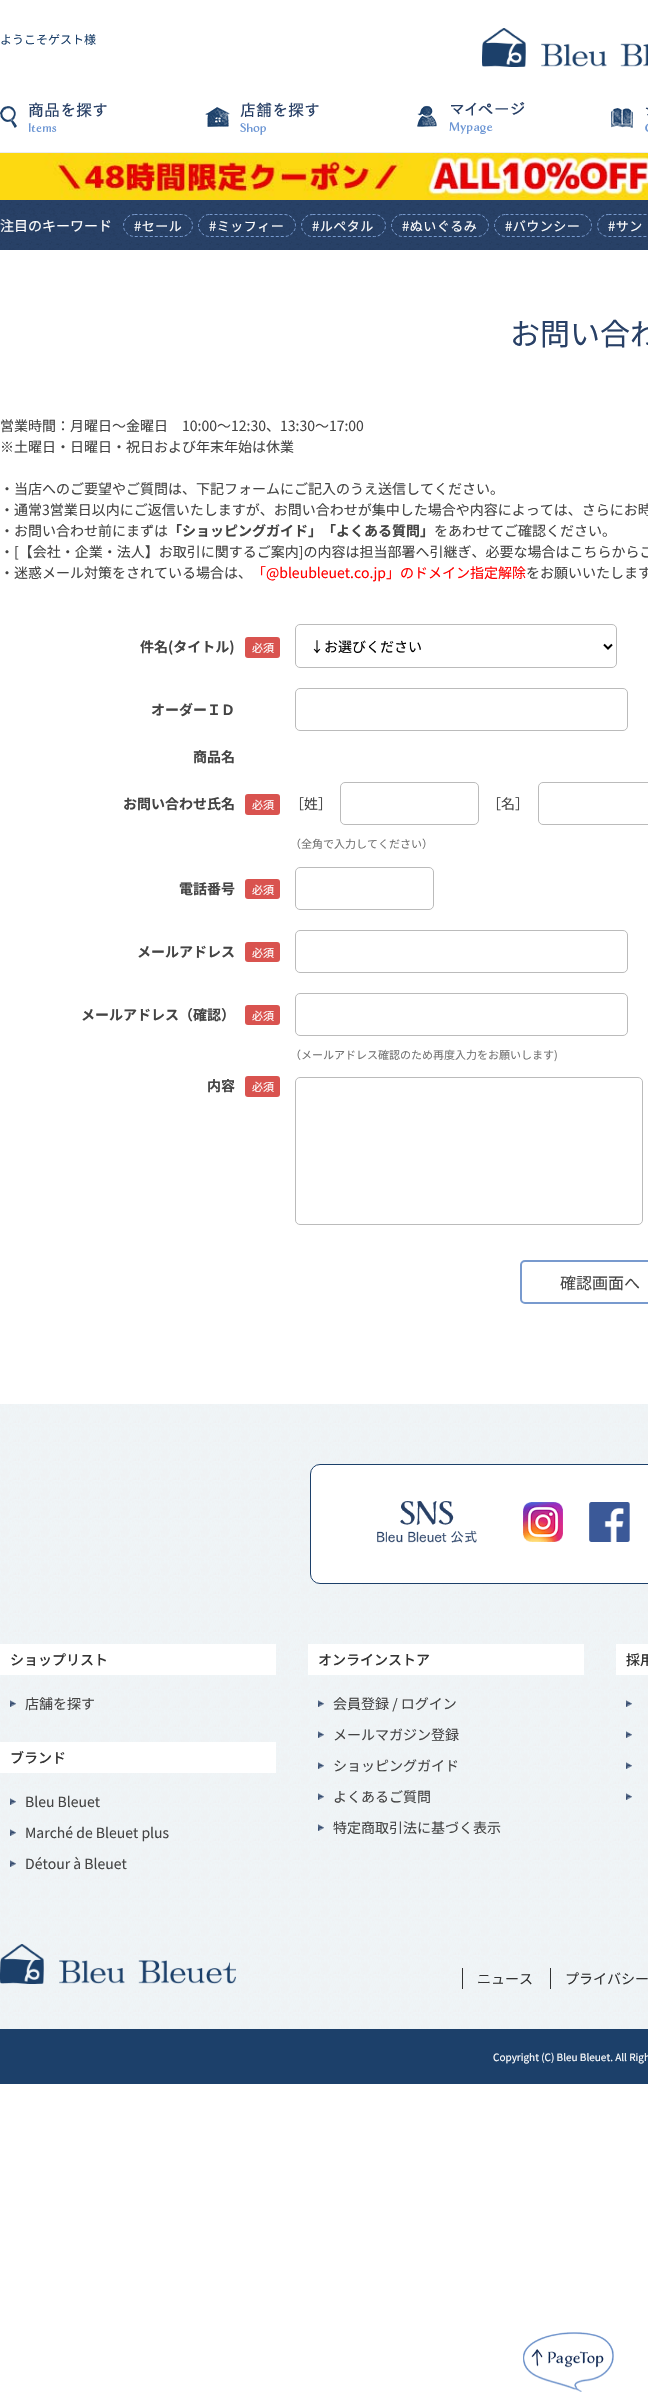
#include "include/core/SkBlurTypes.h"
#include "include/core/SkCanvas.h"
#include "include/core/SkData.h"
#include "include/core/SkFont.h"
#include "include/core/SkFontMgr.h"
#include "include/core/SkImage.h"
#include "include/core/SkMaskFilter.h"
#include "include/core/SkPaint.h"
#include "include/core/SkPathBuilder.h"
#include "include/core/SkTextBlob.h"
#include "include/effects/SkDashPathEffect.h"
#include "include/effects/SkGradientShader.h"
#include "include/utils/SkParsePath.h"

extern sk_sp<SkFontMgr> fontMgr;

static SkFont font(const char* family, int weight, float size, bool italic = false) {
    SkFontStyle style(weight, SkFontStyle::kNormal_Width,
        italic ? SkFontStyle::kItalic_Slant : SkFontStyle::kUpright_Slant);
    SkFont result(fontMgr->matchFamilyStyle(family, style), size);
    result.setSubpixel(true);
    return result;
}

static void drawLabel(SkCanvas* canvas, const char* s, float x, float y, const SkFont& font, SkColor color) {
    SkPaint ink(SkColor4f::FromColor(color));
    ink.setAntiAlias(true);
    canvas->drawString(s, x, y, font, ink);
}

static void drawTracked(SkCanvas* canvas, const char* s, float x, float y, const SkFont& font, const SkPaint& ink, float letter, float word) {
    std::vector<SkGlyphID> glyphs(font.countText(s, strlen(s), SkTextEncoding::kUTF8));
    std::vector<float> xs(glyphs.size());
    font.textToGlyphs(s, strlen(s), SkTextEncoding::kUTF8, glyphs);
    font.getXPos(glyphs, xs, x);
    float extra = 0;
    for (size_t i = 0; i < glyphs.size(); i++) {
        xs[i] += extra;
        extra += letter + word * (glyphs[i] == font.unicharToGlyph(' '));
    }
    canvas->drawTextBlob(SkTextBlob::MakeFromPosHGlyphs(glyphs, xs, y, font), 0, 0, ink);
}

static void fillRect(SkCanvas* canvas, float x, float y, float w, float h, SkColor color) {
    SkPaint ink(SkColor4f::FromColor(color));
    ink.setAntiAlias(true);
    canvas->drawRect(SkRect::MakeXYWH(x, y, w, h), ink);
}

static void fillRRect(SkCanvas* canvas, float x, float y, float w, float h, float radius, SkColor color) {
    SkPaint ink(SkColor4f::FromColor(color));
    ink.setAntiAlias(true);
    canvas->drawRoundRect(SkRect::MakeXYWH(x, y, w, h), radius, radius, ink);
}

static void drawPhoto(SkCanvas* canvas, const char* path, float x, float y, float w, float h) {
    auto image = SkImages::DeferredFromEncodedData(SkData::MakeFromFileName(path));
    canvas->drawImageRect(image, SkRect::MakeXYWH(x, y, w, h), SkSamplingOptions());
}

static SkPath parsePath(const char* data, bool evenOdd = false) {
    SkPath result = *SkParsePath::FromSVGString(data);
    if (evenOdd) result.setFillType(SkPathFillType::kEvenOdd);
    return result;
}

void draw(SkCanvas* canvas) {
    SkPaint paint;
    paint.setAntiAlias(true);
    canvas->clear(0xFFFFFFFF);
    SkFont font1 = font("Noto Sans JP", 400, 12);
    drawLabel(canvas, "ようこそゲスト様", 0, 44, font1, 0xFF1C406A);
    drawPhoto(canvas, "assets/img1.png", 482, 28, 166, 39);
    fillRect(canvas, 0, 152, 648, 1, 0xFFEBEDF1);
    drawPhoto(canvas, "assets/img2.png", 0, 102, 107, 30);
    drawPhoto(canvas, "assets/img3.png", 205, 102, 114, 33);
    drawPhoto(canvas, "assets/img4.png", 417, 102, 108, 32);
    drawPhoto(canvas, "assets/img5.png", 611, 107, 37, 25);
    drawPhoto(canvas, "assets/img6.png", 0, 153, 648, 47);
    drawPhoto(canvas, "assets/img7.png", 0, 200, 648, 50);
    SkFont font2 = font("Noto Sans JP", 400, 14);
    drawLabel(canvas, "注目のキーワード", 0, 231, font2, 0xFFFFFFFF);
    paint.setStroke(true);
    paint.setStrokeWidth(1);
    paint.setColor(0xFF789ACE);
    paint.setPathEffect(SkDashPathEffect::Make({{3, 2}}, 0));
    canvas->drawPath(parsePath("M134.5 214.5H181.5C187.5 214.5 192.5 219.5 192.5 225.5C192.5 231.5 187.5 236.5 181.5 236.5H134.5C128.5 236.5 123.5 231.5 123.5 225.5C123.5 219.5 128.5 214.5 134.5 214.5Z"), paint);
    paint.setPathEffect(nullptr);
    SkFont font3 = font("Noto Sans JP", 400, 13);
    paint.setStroke(false);
    paint.setColor(0xFFFFFFFF);
    drawTracked(canvas, "#セール", 134, 231, font3, paint, 0.5f, 0);
    paint.setStroke(true);
    paint.setColor(0xFF789ACE);
    paint.setPathEffect(SkDashPathEffect::Make({{3, 2}}, 0));
    canvas->drawPath(parsePath("M209.5 214.5H284.5C290.5 214.5 295.5 219.5 295.5 225.5C295.5 231.5 290.5 236.5 284.5 236.5H209.5C203.5 236.5 198.5 231.5 198.5 225.5C198.5 219.5 203.5 214.5 209.5 214.5Z"), paint);
    paint.setPathEffect(nullptr);
    paint.setStroke(false);
    paint.setColor(0xFFFFFFFF);
    drawTracked(canvas, "#ミッフィー", 209, 231, font3, paint, 0.5f, 0);
    paint.setStroke(true);
    paint.setColor(0xFF789ACE);
    paint.setPathEffect(SkDashPathEffect::Make({{3, 2}}, 0));
    canvas->drawPath(parsePath("M312.5 214.5H374.5C380.5 214.5 385.5 219.5 385.5 225.5C385.5 231.5 380.5 236.5 374.5 236.5H312.5C306.5 236.5 301.5 231.5 301.5 225.5C301.5 219.5 306.5 214.5 312.5 214.5Z"), paint);
    paint.setPathEffect(nullptr);
    paint.setStroke(false);
    paint.setColor(0xFFFFFFFF);
    drawTracked(canvas, "#ルペタル", 312, 231, font3, paint, 0.5f, 0);
    paint.setStroke(true);
    paint.setColor(0xFF789ACE);
    paint.setPathEffect(SkDashPathEffect::Make({{3, 2}}, 0));
    canvas->drawPath(parsePath("M402.5 214.5H477.5C483.5 214.5 488.5 219.5 488.5 225.5C488.5 231.5 483.5 236.5 477.5 236.5H402.5C396.5 236.5 391.5 231.5 391.5 225.5C391.5 219.5 396.5 214.5 402.5 214.5Z"), paint);
    paint.setPathEffect(nullptr);
    paint.setStroke(false);
    paint.setColor(0xFFFFFFFF);
    drawTracked(canvas, "#ぬいぐるみ", 402, 231, font3, paint, 0.5f, 0);
    paint.setStroke(true);
    paint.setColor(0xFF789ACE);
    paint.setPathEffect(SkDashPathEffect::Make({{3, 2}}, 0));
    canvas->drawPath(parsePath("M505.5 214.5H580.5C586.5 214.5 591.5 219.5 591.5 225.5C591.5 231.5 586.5 236.5 580.5 236.5H505.5C499.5 236.5 494.5 231.5 494.5 225.5C494.5 219.5 499.5 214.5 505.5 214.5Z"), paint);
    paint.setPathEffect(nullptr);
    paint.setStroke(false);
    paint.setColor(0xFFFFFFFF);
    drawTracked(canvas, "#バウンシー", 505, 231, font3, paint, 0.5f, 0);
    paint.setStroke(true);
    paint.setColor(0xFF789ACE);
    paint.setPathEffect(SkDashPathEffect::Make({{3, 2}}, 0));
    canvas->drawPath(parsePath("M608.5 214.5H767.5L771.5 216.5C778.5 221 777.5 232.5 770 235.5L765.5 236.5H608.5C594 236.5 594 214.5 608.5 214.5Z"), paint);
    paint.setPathEffect(nullptr);
    paint.setStroke(false);
    paint.setColor(0xFFFFFFFF);
    drawTracked(canvas, "#サン", 608, 231, font3, paint, 0.5f, 0);
    SkFont font4 = font("Noto Sans JP", 400, 30);
    drawLabel(canvas, "お問い合わ", 510, 345, font4, 0xFF284066);
    drawLabel(canvas, "営業時間：月曜日〜金曜日　10:00〜12:30、13:30〜17:00", 0, 431, font2, 0xFF444444);
    drawLabel(canvas, "※土曜日・日曜日・祝日および年末年始は休業", 0, 452, font2, 0xFF444444);
    drawLabel(canvas, "・当店へのご要望やご質問は、下記フォームにご記入のうえ送信してください。", 0, 494, font2, 0xFF444444);
    drawLabel(canvas, "・通常3営業日以内にご返信いたしますが、お問い合わせが集中した場合や内容によっては、さらにお時", 0, 515, font2, 0xFF444444);
    drawLabel(canvas, "・お問い合わせ前にまずは", 0, 536, font2, 0xFF444444);
    SkFont font5 = font("Noto Sans JP", 700, 14);
    drawLabel(canvas, "「ショッピングガイド」「よくある質問」", 168, 536, font5, 0xFF444444);
    drawLabel(canvas, "をあわせてご確認ください。", 434, 536, font2, 0xFF444444);
    drawLabel(canvas, "・[【会社・企業・法人】お取引に関するご案内]の内容は担当部署へ引継ぎ、必要な場合はこちらからご", 0, 557, font2, 0xFF444444);
    drawLabel(canvas, "・迷惑メール対策をされている場合は、", 0, 578, font2, 0xFF444444);
    drawLabel(canvas, "「@bleubleuet.co.jp」のドメイン指定解除", 252, 578, font2, 0xFFFF0000);
    drawLabel(canvas, "をお願いいたします", 526, 578, font2, 0xFF444444);
    drawLabel(canvas, "件名(タイトル)", 140, 652, font5, 0xFF444444);
    fillRRect(canvas, 245, 637, 35, 21, 3, 0xFFD9534F);
    SkFont font6 = font("Noto Sans JP", 400, 11);
    drawLabel(canvas, "必須", 252, 652, font6, 0xFFFFFFFF);
    paint.setStroke(true);
    paint.setColor(0xFFBBBBBB);
    canvas->drawRoundRect(SkRect::MakeXYWH(295.5f, 624.5f, 321, 43), 4.5f, 4.5f, paint);
    paint.setStrokeWidth(2);
    paint.setColor(0xFF000000);
    canvas->drawPath(parsePath("M604 644.5L608 648.5L612 644.5"), paint);
    drawLabel(canvas, "↓お選びください", 310, 652, font2, 0xFF000000);
    drawLabel(canvas, "オーダーＩＤ", 151, 715, font5, 0xFF444444);
    paint.setStrokeWidth(1);
    paint.setColor(0xFFBBBBBB);
    canvas->drawRoundRect(SkRect::MakeXYWH(295.5f, 688.5f, 332, 42), 4.5f, 4.5f, paint);
    drawLabel(canvas, "商品名", 193, 762, font5, 0xFF444444);
    drawLabel(canvas, "お問い合わせ氏名", 123, 809, font5, 0xFF444444);
    fillRRect(canvas, 245, 794, 35, 21, 3, 0xFFD9534F);
    drawLabel(canvas, "必須", 252, 809, font6, 0xFFFFFFFF);
    drawLabel(canvas, "［姓］", 290, 809, font2, 0xFF444444);
    canvas->drawRoundRect(SkRect::MakeXYWH(340.5f, 782.5f, 138, 42), 4.5f, 4.5f, paint);
    drawLabel(canvas, "［名］", 487, 809, font2, 0xFF444444);
    canvas->drawRoundRect(SkRect::MakeXYWH(538.5f, 782.5f, 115, 42), 4.5f, 4.5f, paint);
    drawLabel(canvas, "（全角で入力してください）", 290, 848, font6, 0xFF737373);
    drawLabel(canvas, "電話番号", 179, 894, font5, 0xFF444444);
    fillRRect(canvas, 245, 879, 35, 20, 3, 0xFFD9534F);
    drawLabel(canvas, "必須", 252, 894, font6, 0xFFFFFFFF);
    canvas->drawRoundRect(SkRect::MakeXYWH(295.5f, 867.5f, 138, 42), 4.5f, 4.5f, paint);
    drawLabel(canvas, "メールアドレス", 137, 957, font5, 0xFF444444);
    fillRRect(canvas, 245, 942, 35, 20, 3, 0xFFD9534F);
    drawLabel(canvas, "必須", 252, 957, font6, 0xFFFFFFFF);
    canvas->drawRoundRect(SkRect::MakeXYWH(295.5f, 930.5f, 332, 42), 4.5f, 4.5f, paint);
    drawLabel(canvas, "メールアドレス（確認）", 81, 1020, font5, 0xFF444444);
    fillRRect(canvas, 245, 1005, 35, 20, 3, 0xFFD9534F);
    drawLabel(canvas, "必須", 252, 1020, font6, 0xFFFFFFFF);
    canvas->drawRoundRect(SkRect::MakeXYWH(295.5f, 993.5f, 332, 42), 4.5f, 4.5f, paint);
    drawLabel(canvas, "（メールアドレス確認のため再度入力をお願いします)", 290, 1059, font6, 0xFF737373);
    drawLabel(canvas, "内容", 207, 1091, font5, 0xFF444444);
    fillRRect(canvas, 245, 1076, 35, 21, 3, 0xFFD9534F);
    drawLabel(canvas, "必須", 252, 1091, font6, 0xFFFFFFFF);
    canvas->drawRoundRect(SkRect::MakeXYWH(295.5f, 1077.5f, 347, 147), 4.5f, 4.5f, paint);
    paint.setStrokeWidth(2);
    paint.setColor(0xFF789ACE);
    canvas->drawRoundRect(SkRect::MakeXYWH(521, 1261, 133, 42), 4, 4, paint);
    SkFont font7 = font("Noto Sans JP", 400, 16);
    drawLabel(canvas, "確認画面へ", 560, 1289, font7, 0xFF444444);
    drawPhoto(canvas, "assets/img8.png", 0, 1404, 648, 625);
    paint.setStroke(false);
    paint.setColor(0xFFFFFFFF);
    canvas->drawRoundRect(SkRect::MakeXYWH(310.5f, 1464.5f, 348, 119), 9.5f, 9.5f, paint);
    paint.setStroke(true);
    paint.setStrokeWidth(1);
    paint.setColor(0xFF1C406A);
    canvas->drawRoundRect(SkRect::MakeXYWH(310.5f, 1464.5f, 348, 119), 9.5f, 9.5f, paint);
    drawPhoto(canvas, "assets/img9.png", 377, 1501, 100, 42);
    drawPhoto(canvas, "assets/img10.png", 523, 1502, 40, 40);
    drawPhoto(canvas, "assets/img11.png", 589, 1502, 41, 40);
    fillRect(canvas, 0, 1644, 276, 31, 0xFFFFFFFF);
    SkFont font8 = font("Noto Sans JP", 500, 14);
    drawLabel(canvas, "ショップリスト", 10, 1665, font8, 0xFF333333);
    drawPhoto(canvas, "assets/img12.png", 10, 1700, 6, 7);
    drawLabel(canvas, "店舗を探す", 25, 1709, font2, 0xFF444444);
    fillRect(canvas, 0, 1742, 276, 31, 0xFFFFFFFF);
    drawLabel(canvas, "ブランド", 10, 1763, font8, 0xFF333333);
    drawPhoto(canvas, "assets/img13.png", 10, 1798, 6, 7);
    drawLabel(canvas, "Bleu Bleuet", 25, 1807, font2, 0xFF444444);
    drawPhoto(canvas, "assets/img14.png", 10, 1829, 6, 7);
    drawLabel(canvas, "Marché de Bleuet plus", 25, 1838, font2, 0xFF444444);
    drawPhoto(canvas, "assets/img15.png", 10, 1860, 6, 7);
    drawLabel(canvas, "Détour à Bleuet", 25, 1869, font2, 0xFF444444);
    fillRect(canvas, 308, 1644, 276, 31, 0xFFFFFFFF);
    drawLabel(canvas, "オンラインストア", 318, 1665, font8, 0xFF333333);
    drawPhoto(canvas, "assets/img16.png", 318, 1700, 6, 7);
    drawLabel(canvas, "会員登録 / ログイン", 333, 1709, font2, 0xFF444444);
    drawPhoto(canvas, "assets/img17.png", 318, 1731, 6, 7);
    drawLabel(canvas, "メールマガジン登録", 333, 1740, font2, 0xFF444444);
    drawPhoto(canvas, "assets/img18.png", 318, 1762, 6, 7);
    drawLabel(canvas, "ショッピングガイド", 333, 1771, font2, 0xFF444444);
    drawPhoto(canvas, "assets/img19.png", 318, 1793, 6, 7);
    drawLabel(canvas, "よくあるご質問", 333, 1802, font2, 0xFF444444);
    drawPhoto(canvas, "assets/img20.png", 318, 1824, 6, 7);
    drawLabel(canvas, "特定商取引法に基づく表示", 333, 1833, font2, 0xFF444444);
    fillRect(canvas, 616, 1644, 32, 31, 0xFFFFFFFF);
    drawLabel(canvas, "採用", 626, 1665, font8, 0xFF333333);
    drawPhoto(canvas, "assets/img21.png", 626, 1700, 6, 7);
    drawPhoto(canvas, "assets/img22.png", 626, 1731, 6, 7);
    drawPhoto(canvas, "assets/img23.png", 626, 1762, 6, 7);
    drawPhoto(canvas, "assets/img24.png", 626, 1793, 6, 7);
    drawPhoto(canvas, "assets/img25.png", 0, 1944, 236, 40);
    fillRect(canvas, 462, 1968, 1, 21, 0xFF333333);
    drawLabel(canvas, "ニュース", 477, 1984, font2, 0xFF333333);
    fillRect(canvas, 550, 1968, 1, 21, 0xFF333333);
    drawLabel(canvas, "プライバシー", 565, 1984, font2, 0xFF333333);
    drawPhoto(canvas, "assets/img26.png", 523, 2332, 91, 60);
    fillRect(canvas, 0, 2029, 648, 55, 0xFF1C406A);
    SkFont font9 = font("Noto Sans JP", 400, 10);
    drawLabel(canvas, "Copyright (C) Bleu Bleuet. All Righ", 493, 2061, font9, 0xFFFFFFFF);
}
